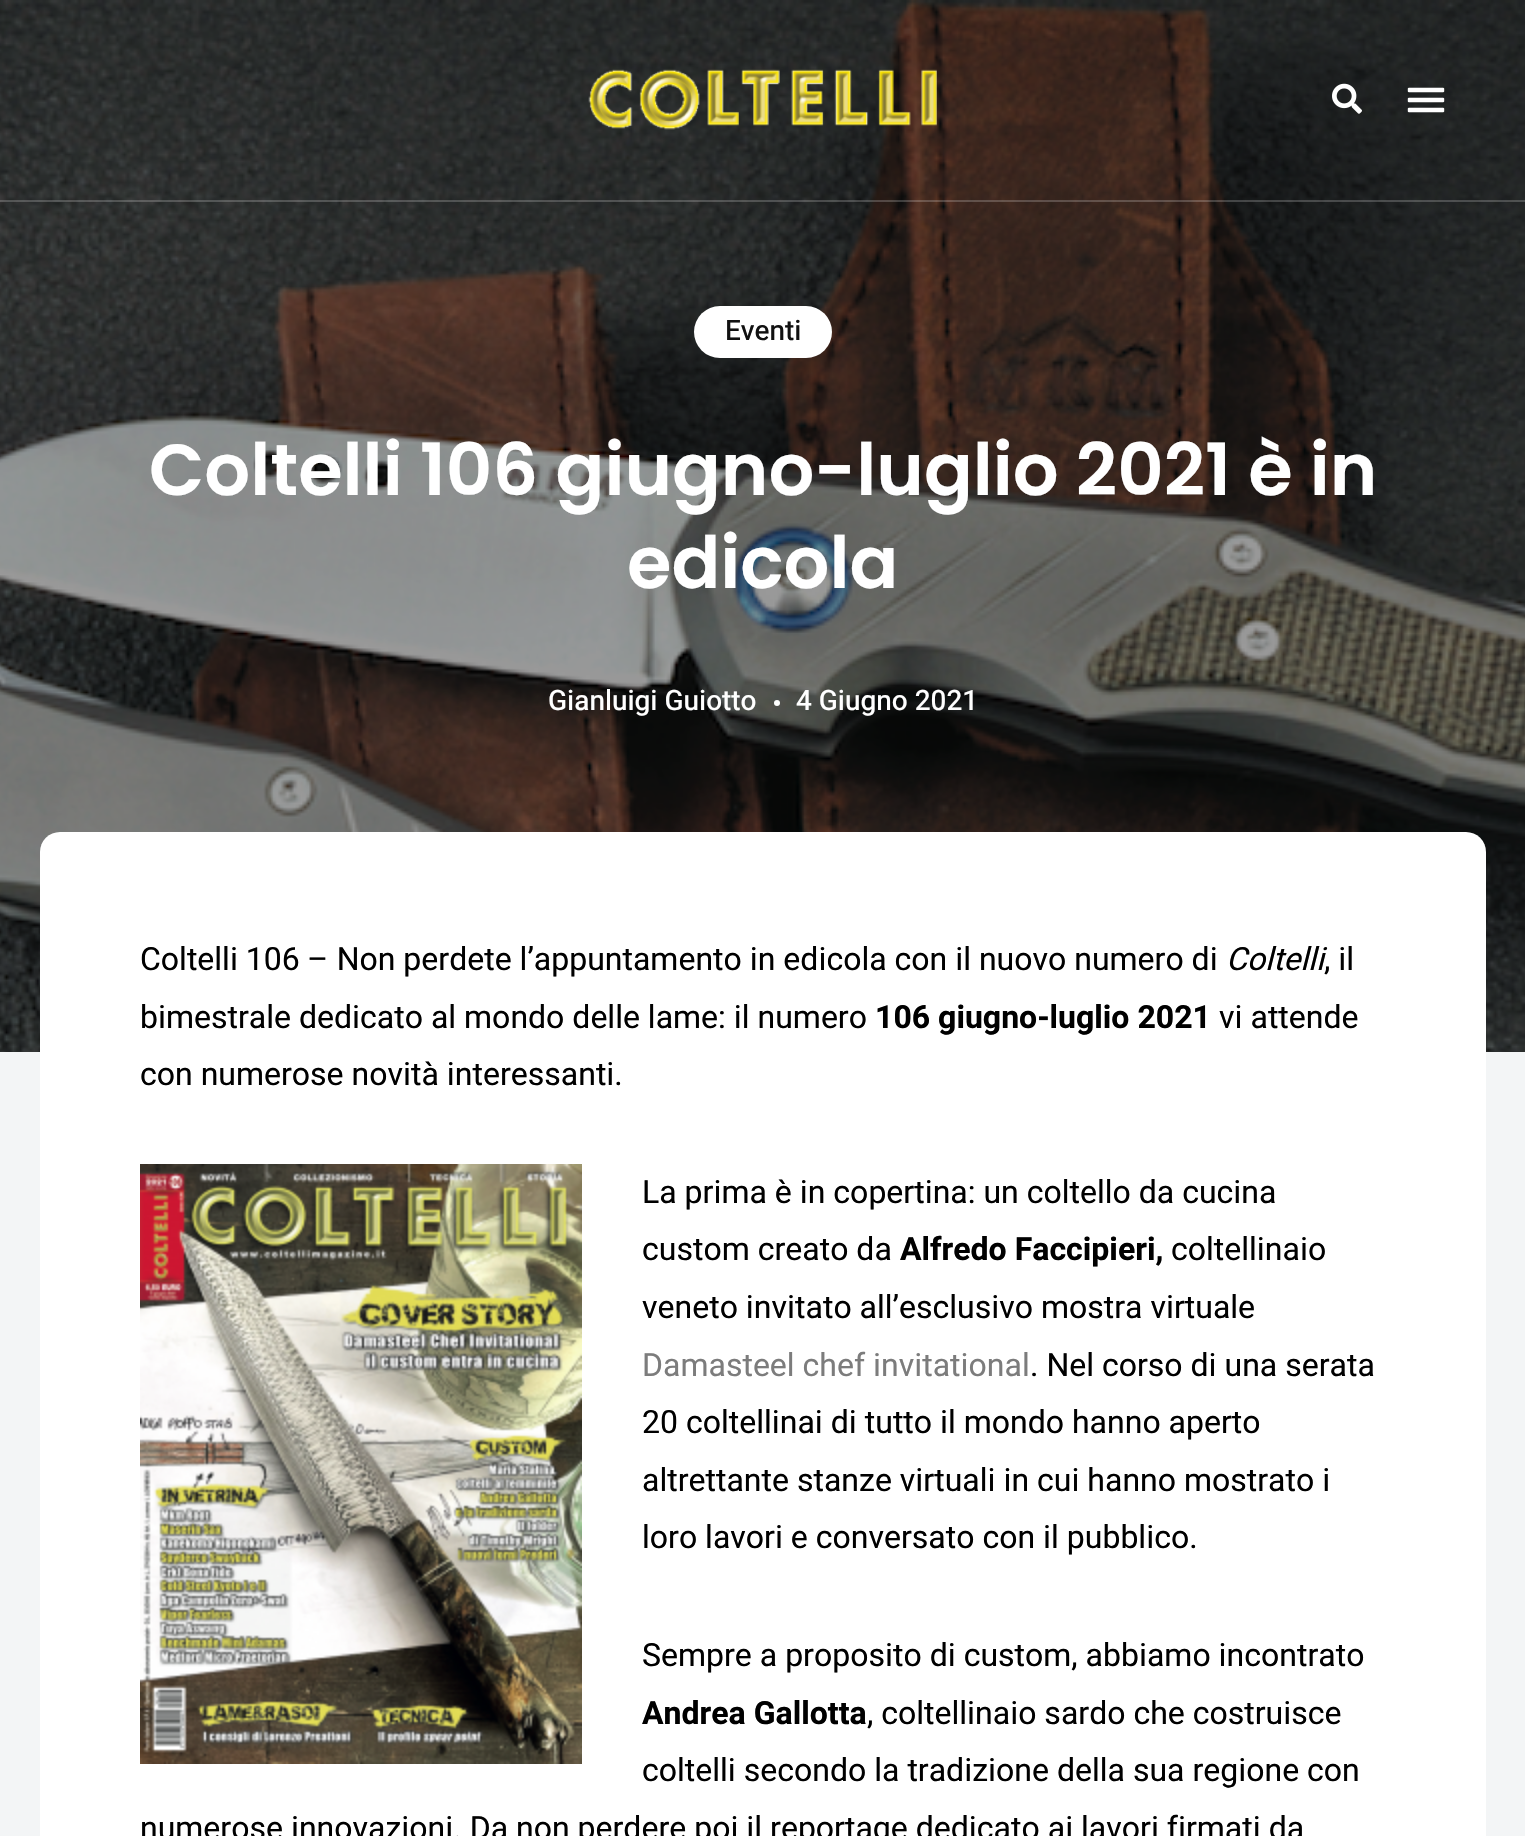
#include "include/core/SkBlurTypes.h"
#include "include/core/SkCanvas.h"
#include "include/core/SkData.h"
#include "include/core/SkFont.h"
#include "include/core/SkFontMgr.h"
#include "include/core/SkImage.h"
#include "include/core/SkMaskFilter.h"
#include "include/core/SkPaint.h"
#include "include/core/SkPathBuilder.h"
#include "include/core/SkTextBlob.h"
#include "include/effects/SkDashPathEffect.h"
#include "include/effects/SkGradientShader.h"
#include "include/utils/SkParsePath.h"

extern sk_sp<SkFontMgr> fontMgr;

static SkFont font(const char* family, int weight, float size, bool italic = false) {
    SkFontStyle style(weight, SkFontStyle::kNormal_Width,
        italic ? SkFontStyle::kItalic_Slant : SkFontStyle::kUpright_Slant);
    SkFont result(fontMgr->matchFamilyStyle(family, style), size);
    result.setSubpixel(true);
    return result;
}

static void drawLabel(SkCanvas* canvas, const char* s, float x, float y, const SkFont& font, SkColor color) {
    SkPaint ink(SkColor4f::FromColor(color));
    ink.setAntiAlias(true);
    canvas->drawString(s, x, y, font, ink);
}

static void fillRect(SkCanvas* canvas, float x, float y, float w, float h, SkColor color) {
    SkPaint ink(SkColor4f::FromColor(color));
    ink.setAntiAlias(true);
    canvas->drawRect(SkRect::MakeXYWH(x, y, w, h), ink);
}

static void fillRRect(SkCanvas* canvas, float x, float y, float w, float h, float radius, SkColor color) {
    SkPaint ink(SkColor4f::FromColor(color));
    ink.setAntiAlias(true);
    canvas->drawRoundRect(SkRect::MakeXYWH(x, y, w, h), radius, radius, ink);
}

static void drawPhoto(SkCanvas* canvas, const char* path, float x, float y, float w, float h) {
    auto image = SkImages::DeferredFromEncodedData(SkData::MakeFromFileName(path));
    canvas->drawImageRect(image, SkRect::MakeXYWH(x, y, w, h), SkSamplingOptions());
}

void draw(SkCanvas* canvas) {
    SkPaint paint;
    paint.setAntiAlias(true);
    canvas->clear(0xFFF3F5F6);
    drawPhoto(canvas, "assets/img4.png", 0, 0, 1525, 1052);
    fillRect(canvas, 0, 200, 1525, 2, 0x33FFFFFF);
    drawPhoto(canvas, "assets/img1.png", 588, 69, 349, 61);
    drawPhoto(canvas, "assets/img2.png", 1332, 83, 30, 31);
    drawPhoto(canvas, "assets/img3.png", 1407, 87, 38, 26);
    fillRRect(canvas, 694, 306, 138, 52, 26, 0xFFFFFFFF);
    SkFont font1 = font("Heebo", 500, 28);
    drawLabel(canvas, "Eventi", 725, 340, font1, 0xFF111111);
    SkFont font2 = font("Poppins", 600, 72);
    drawLabel(canvas, "Coltelli 106 giugno-luglio 2021 è in", 149, 495, font2, 0xFFFFFFFF);
    drawLabel(canvas, "edicola", 627, 588, font2, 0xFFFFFFFF);
    drawLabel(canvas, "Gianluigi Guiotto", 548, 710, font1, 0xFFFFFFFF);
    paint.setColor(0xFFFFFFFF);
    canvas->drawCircle(777, 703, 3, paint);
    drawLabel(canvas, "4 Giugno 2021", 796, 710, font1, 0xFFFFFFFF);
    fillRRect(canvas, 40, 832, 1446, 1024, 20, 0xFFFFFFFF);
    SkFont font3 = font("Heebo", 400, 32);
    drawLabel(canvas, "Coltelli 106 – Non perdete l’appuntamento in edicola con il nuovo numero di", 140, 970, font3, 0xFF000000);
    SkFont font4 = font("Heebo", 400, 32, true);
    drawLabel(canvas, "Coltelli", 1226, 970, font4, 0xFF000000);
    drawLabel(canvas, ", il", 1324, 970, font3, 0xFF000000);
    drawLabel(canvas, "bimestrale dedicato al mondo delle lame: il numero", 140, 1028, font3, 0xFF000000);
    SkFont font5 = font("Heebo", 700, 32);
    drawLabel(canvas, "106 giugno-luglio 2021", 875, 1028, font5, 0xFF000000);
    drawLabel(canvas, "vi attende", 1219, 1028, font3, 0xFF000000);
    drawLabel(canvas, "con numerose novità interessanti.", 140, 1085, font3, 0xFF000000);
    drawPhoto(canvas, "assets/img5.png", 140, 1164, 442, 600);
    drawLabel(canvas, "La prima è in copertina: un coltello da cucina", 642, 1203, font3, 0xFF000000);
    drawLabel(canvas, "custom creato da", 642, 1260, font3, 0xFF000000);
    drawLabel(canvas, "Alfredo Faccipieri,", 900, 1260, font5, 0xFF000000);
    drawLabel(canvas, "coltellinaio", 1171, 1260, font3, 0xFF000000);
    drawLabel(canvas, "veneto invitato all’esclusivo mostra virtuale", 642, 1318, font3, 0xFF000000);
    drawLabel(canvas, "Damasteel chef invitational", 642, 1376, font3, 0xFF7C7C7C);
    drawLabel(canvas, ". Nel corso di una serata", 1030, 1376, font3, 0xFF000000);
    drawLabel(canvas, "20 coltellinai di tutto il mondo hanno aperto", 642, 1433, font3, 0xFF000000);
    drawLabel(canvas, "altrettante stanze virtuali in cui hanno mostrato i", 642, 1491, font3, 0xFF000000);
    drawLabel(canvas, "loro lavori e conversato con il pubblico.", 642, 1548, font3, 0xFF000000);
    drawLabel(canvas, "Sempre a proposito di custom, abbiamo incontrato", 642, 1666, font3, 0xFF000000);
    drawLabel(canvas, "Andrea Gallotta", 642, 1724, font5, 0xFF000000);
    drawLabel(canvas, ", coltellinaio sardo che costruisce", 867, 1724, font3, 0xFF000000);
    drawLabel(canvas, "coltelli secondo la tradizione della sua regione con", 642, 1781, font3, 0xFF000000);
    drawLabel(canvas, "numerose innovazioni. Da non perdere poi il reportage dedicato ai lavori firmati da", 140, 1839, font3, 0xFF000000);
}
